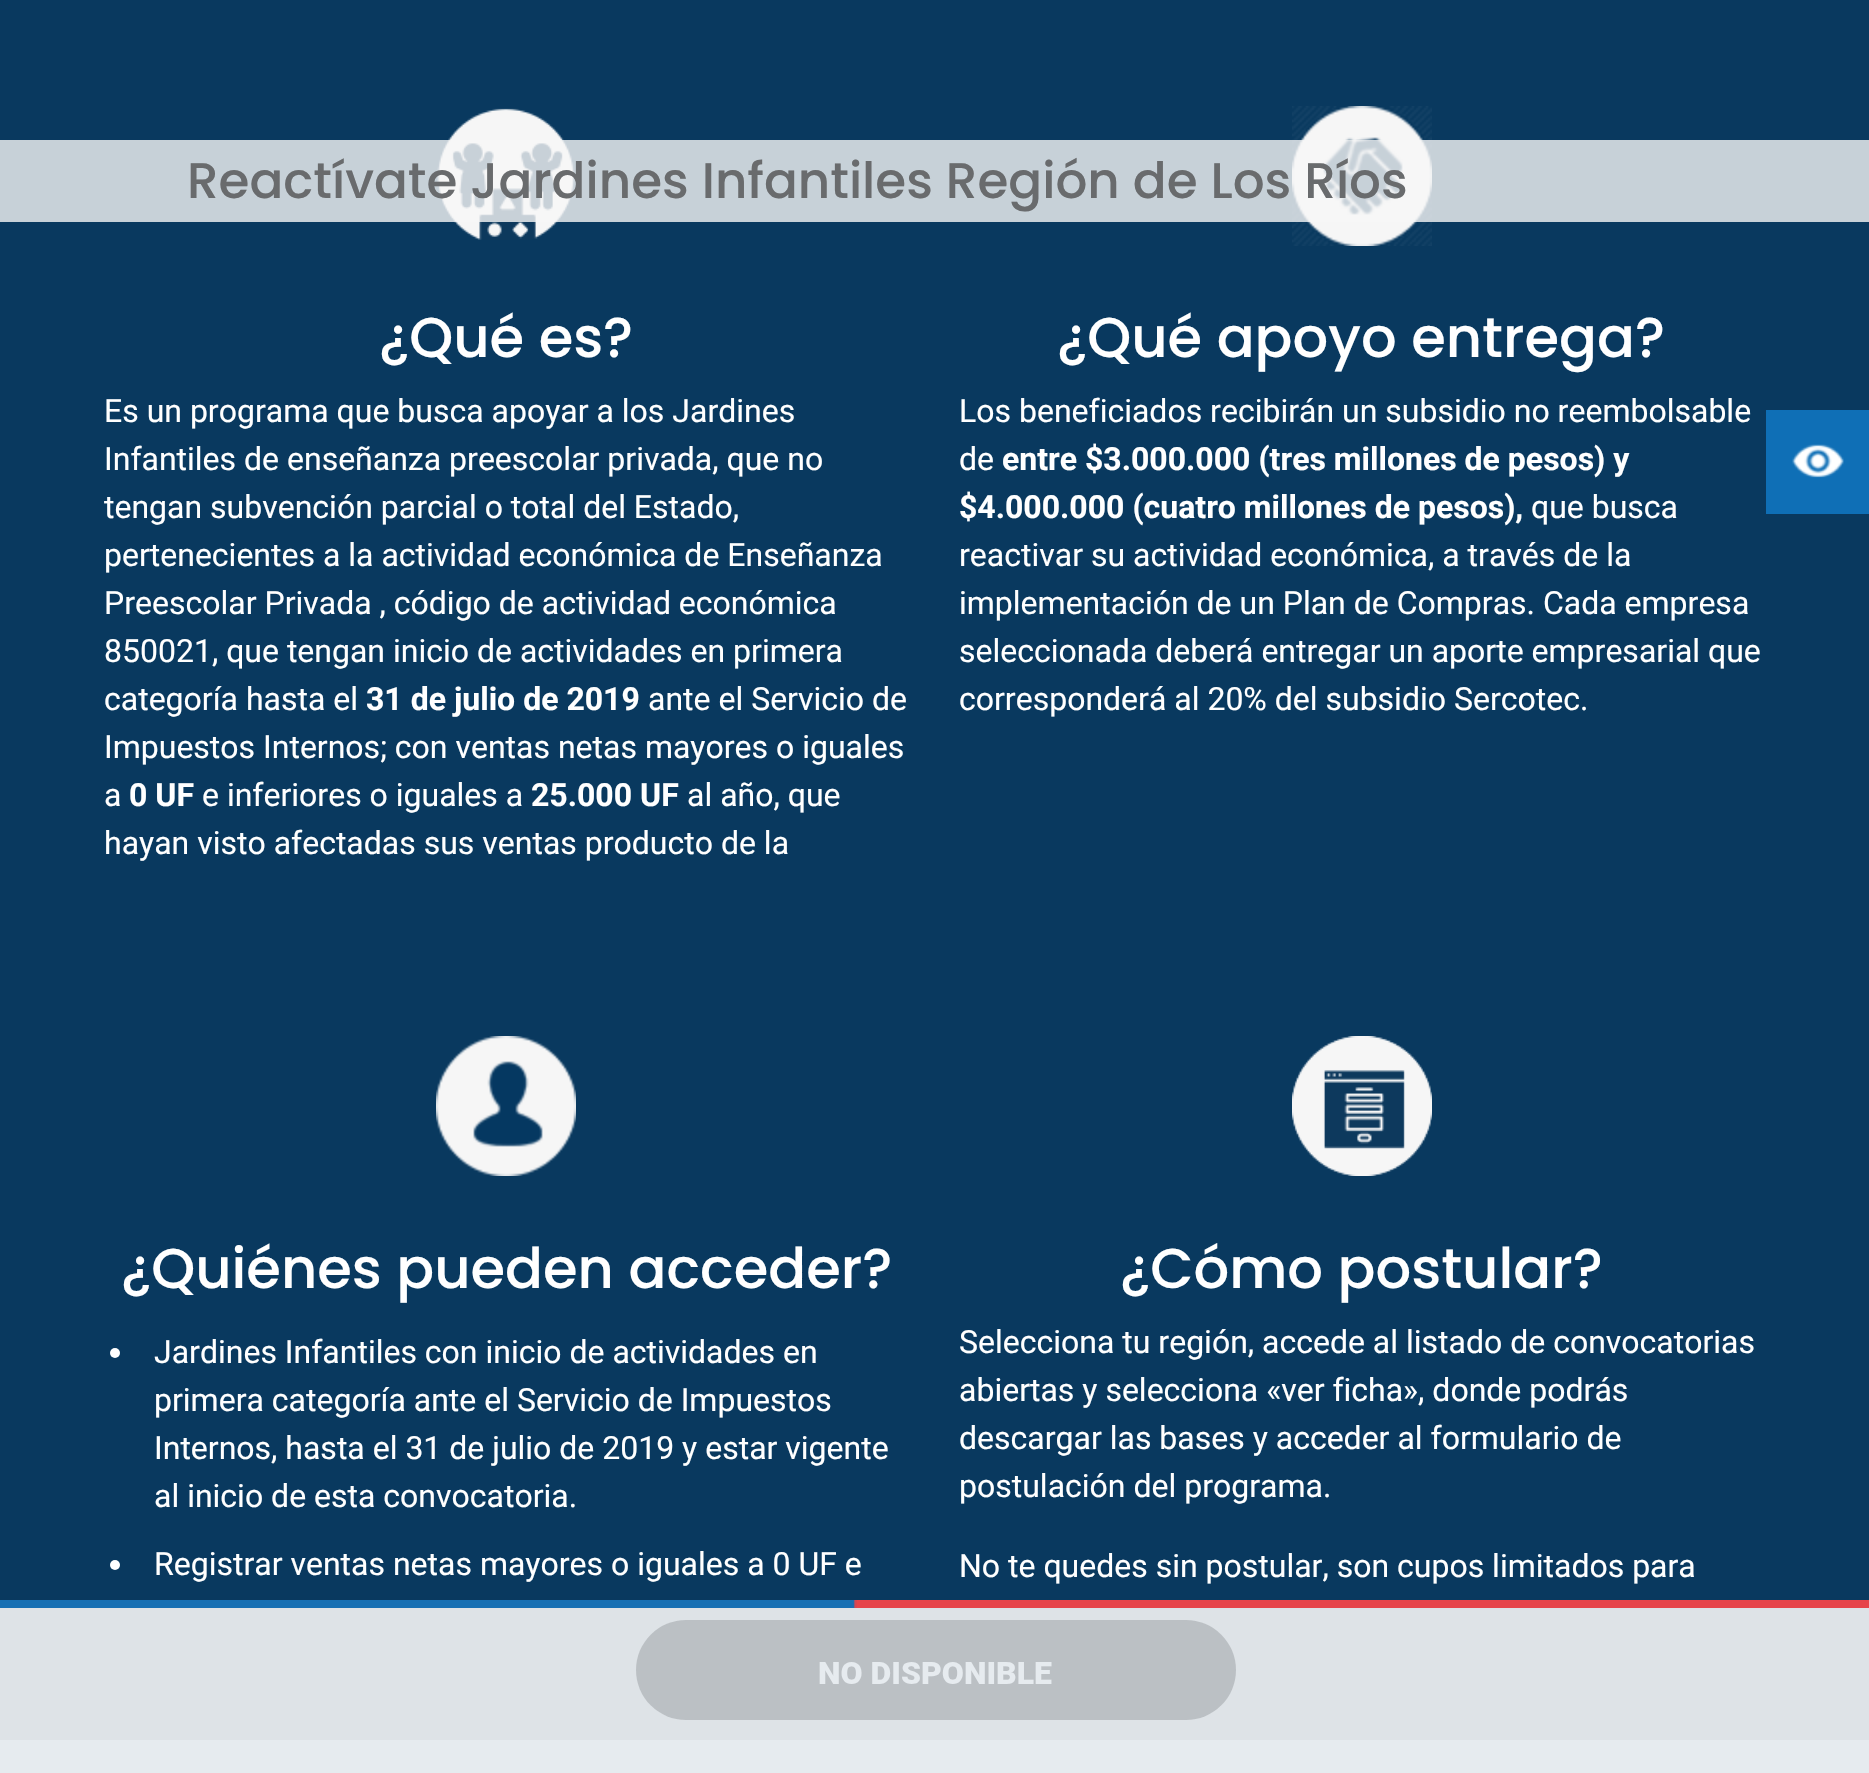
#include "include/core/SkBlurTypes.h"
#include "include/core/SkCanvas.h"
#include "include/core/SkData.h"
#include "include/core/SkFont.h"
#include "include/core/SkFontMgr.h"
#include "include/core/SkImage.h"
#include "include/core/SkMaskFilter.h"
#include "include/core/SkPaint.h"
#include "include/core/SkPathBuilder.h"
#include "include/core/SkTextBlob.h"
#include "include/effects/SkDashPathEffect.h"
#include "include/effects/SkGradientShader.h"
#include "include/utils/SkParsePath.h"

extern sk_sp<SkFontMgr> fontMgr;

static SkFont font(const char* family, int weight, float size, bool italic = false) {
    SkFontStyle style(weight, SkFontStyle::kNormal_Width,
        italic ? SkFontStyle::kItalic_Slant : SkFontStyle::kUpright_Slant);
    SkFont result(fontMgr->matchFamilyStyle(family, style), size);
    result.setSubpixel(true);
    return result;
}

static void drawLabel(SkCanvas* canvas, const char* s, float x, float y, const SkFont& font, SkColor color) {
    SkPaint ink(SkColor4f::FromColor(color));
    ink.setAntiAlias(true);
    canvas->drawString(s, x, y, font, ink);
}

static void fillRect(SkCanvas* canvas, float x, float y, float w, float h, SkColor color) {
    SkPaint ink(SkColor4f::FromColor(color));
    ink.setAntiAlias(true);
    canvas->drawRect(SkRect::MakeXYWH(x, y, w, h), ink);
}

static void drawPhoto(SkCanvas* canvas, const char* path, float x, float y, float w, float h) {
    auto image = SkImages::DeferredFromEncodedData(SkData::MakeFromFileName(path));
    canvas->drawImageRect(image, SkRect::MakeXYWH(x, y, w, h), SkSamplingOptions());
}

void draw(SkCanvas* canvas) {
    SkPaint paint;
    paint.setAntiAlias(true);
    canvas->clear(0xFF09395F);
    drawPhoto(canvas, "assets/img1.png", 437, 108, 138, 132);
    drawPhoto(canvas, "assets/img2.png", 1292, 106, 140, 140);
    fillRect(canvas, 0, 140, 1869, 82, 0xCCF6F6F6);
    SkFont font1 = font("Poppins", 500, 50);
    drawLabel(canvas, "Reactívate Jardines Infantiles Región de Los Ríos", 187, 198, font1, 0xFF696B6D);
    SkFont font2 = font("Poppins", 500, 56);
    drawLabel(canvas, "¿Qué es?", 379, 357, font2, 0xFFFFFFFF);
    SkFont font3 = font("Roboto", 400, 32);
    drawLabel(canvas, "Es un programa que busca apoyar a los Jardines", 104, 422, font3, 0xFFFFFFFF);
    drawLabel(canvas, "Infantiles de enseñanza preescolar privada, que no", 104, 470, font3, 0xFFFFFFFF);
    drawLabel(canvas, "tengan subvención parcial o total del Estado,", 104, 518, font3, 0xFFFFFFFF);
    drawLabel(canvas, "pertenecientes a la actividad económica de Enseñanza", 104, 566, font3, 0xFFFFFFFF);
    drawLabel(canvas, "Preescolar Privada , código de actividad económica", 104, 614, font3, 0xFFFFFFFF);
    drawLabel(canvas, "850021, que tengan inicio de actividades en primera", 104, 662, font3, 0xFFFFFFFF);
    drawLabel(canvas, "categoría hasta el", 104, 710, font3, 0xFFFFFFFF);
    SkFont font4 = font("Roboto", 700, 32);
    drawLabel(canvas, "31 de julio de 2019", 366, 710, font4, 0xFFFFFFFF);
    drawLabel(canvas, "ante el Servicio de", 648, 710, font3, 0xFFFFFFFF);
    drawLabel(canvas, "Impuestos Internos; con ventas netas mayores o iguales", 104, 758, font3, 0xFFFFFFFF);
    drawLabel(canvas, "a", 104, 806, font3, 0xFFFFFFFF);
    drawLabel(canvas, "0 UF", 129, 806, font4, 0xFFFFFFFF);
    drawLabel(canvas, "e inferiores o iguales a", 202, 806, font3, 0xFFFFFFFF);
    drawLabel(canvas, "25.000 UF", 531, 806, font4, 0xFFFFFFFF);
    drawLabel(canvas, "al año, que", 687, 806, font3, 0xFFFFFFFF);
    drawLabel(canvas, "hayan visto afectadas sus ventas producto de la", 104, 854, font3, 0xFFFFFFFF);
    drawLabel(canvas, "¿Qué apoyo entrega?", 1057, 357, font2, 0xFFFFFFFF);
    drawLabel(canvas, "Los beneficiados recibirán un subsidio no reembolsable", 959, 422, font3, 0xFFFFFFFF);
    drawLabel(canvas, "de", 959, 470, font3, 0xFFFFFFFF);
    drawLabel(canvas, "entre $3.000.000 (tres millones de pesos) y", 1002, 470, font4, 0xFFFFFFFF);
    drawLabel(canvas, "$4.000.000 (cuatro millones de pesos),", 959, 518, font4, 0xFFFFFFFF);
    drawLabel(canvas, "que busca", 1531, 518, font3, 0xFFFFFFFF);
    drawLabel(canvas, "reactivar su actividad económica, a través de la", 959, 566, font3, 0xFFFFFFFF);
    drawLabel(canvas, "implementación de un Plan de Compras. Cada empresa", 959, 614, font3, 0xFFFFFFFF);
    drawLabel(canvas, "seleccionada deberá entregar un aporte empresarial que", 959, 662, font3, 0xFFFFFFFF);
    drawLabel(canvas, "corresponderá al 20% del subsidio Sercotec.", 959, 710, font3, 0xFFFFFFFF);
    drawPhoto(canvas, "assets/img3.png", 436, 1036, 140, 140);
    drawLabel(canvas, "¿Quiénes pueden acceder?", 121, 1288, font2, 0xFFFFFFFF);
    paint.setColor(0xFFFFFFFF);
    canvas->drawCircle(115, 1353, 5, paint);
    drawLabel(canvas, "Jardines Infantiles con inicio de actividades en", 154, 1363, font3, 0xFFFFFFFF);
    drawLabel(canvas, "primera categoría ante el Servicio de Impuestos", 154, 1411, font3, 0xFFFFFFFF);
    drawLabel(canvas, "Internos, hasta el 31 de julio de 2019 y estar vigente", 154, 1459, font3, 0xFFFFFFFF);
    drawLabel(canvas, "al inicio de esta convocatoria.", 154, 1507, font3, 0xFFFFFFFF);
    canvas->drawCircle(115, 1565, 5, paint);
    drawLabel(canvas, "Registrar ventas netas mayores o iguales a 0 UF e", 154, 1575, font3, 0xFFFFFFFF);
    drawPhoto(canvas, "assets/img4.png", 1292, 1036, 140, 140);
    drawLabel(canvas, "¿Cómo postular?", 1120, 1288, font2, 0xFFFFFFFF);
    drawLabel(canvas, "Selecciona tu región, accede al listado de convocatorias", 959, 1353, font3, 0xFFFFFFFF);
    drawLabel(canvas, "abiertas y selecciona «ver ficha», donde podrás", 959, 1401, font3, 0xFFFFFFFF);
    drawLabel(canvas, "descargar las bases y acceder al formulario de", 959, 1449, font3, 0xFFFFFFFF);
    drawLabel(canvas, "postulación del programa.", 959, 1497, font3, 0xFFFFFFFF);
    drawLabel(canvas, "No te quedes sin postular, son cupos limitados para", 959, 1577, font3, 0xFFFFFFFF);
    drawPhoto(canvas, "assets/img5.png", 0, 1600, 1869, 8);
    drawPhoto(canvas, "assets/img6.png", 0, 1600, 1869, 173);
    fillRect(canvas, 1766, 410, 103, 104, 0xFF0F6FB6);
    drawPhoto(canvas, "assets/img7.png", 1792, 444, 52, 34);
}
